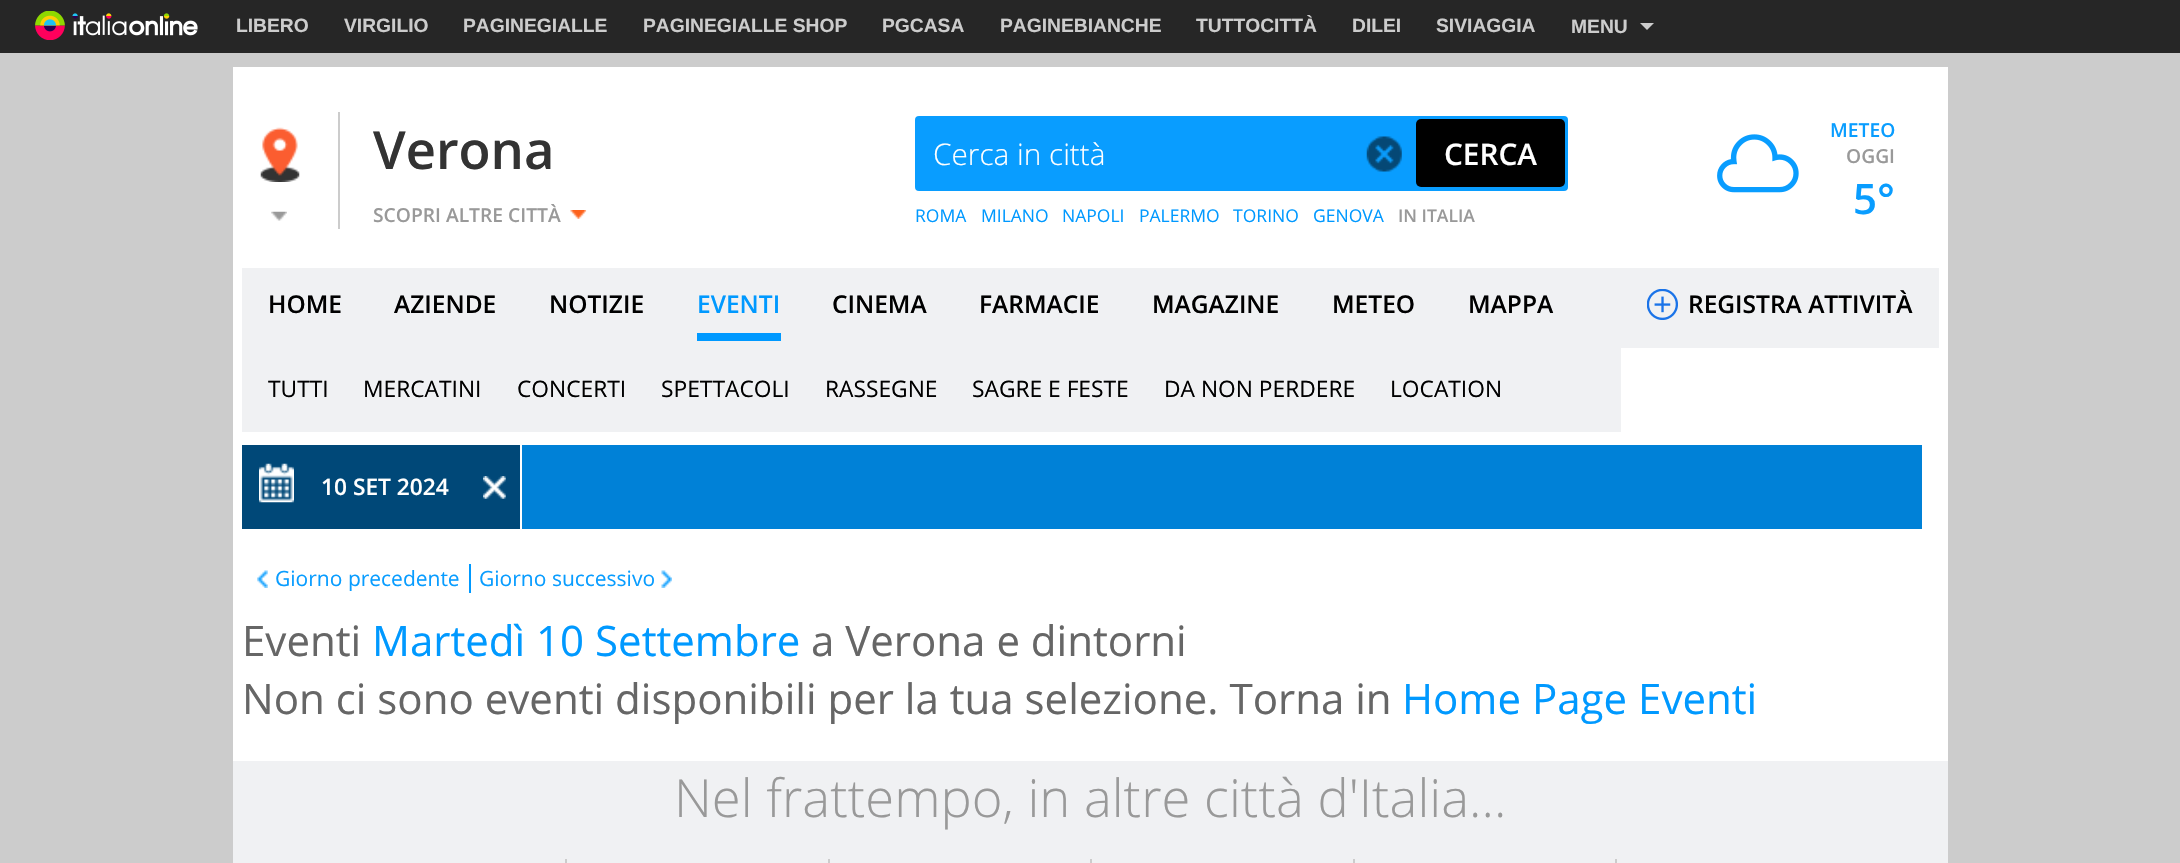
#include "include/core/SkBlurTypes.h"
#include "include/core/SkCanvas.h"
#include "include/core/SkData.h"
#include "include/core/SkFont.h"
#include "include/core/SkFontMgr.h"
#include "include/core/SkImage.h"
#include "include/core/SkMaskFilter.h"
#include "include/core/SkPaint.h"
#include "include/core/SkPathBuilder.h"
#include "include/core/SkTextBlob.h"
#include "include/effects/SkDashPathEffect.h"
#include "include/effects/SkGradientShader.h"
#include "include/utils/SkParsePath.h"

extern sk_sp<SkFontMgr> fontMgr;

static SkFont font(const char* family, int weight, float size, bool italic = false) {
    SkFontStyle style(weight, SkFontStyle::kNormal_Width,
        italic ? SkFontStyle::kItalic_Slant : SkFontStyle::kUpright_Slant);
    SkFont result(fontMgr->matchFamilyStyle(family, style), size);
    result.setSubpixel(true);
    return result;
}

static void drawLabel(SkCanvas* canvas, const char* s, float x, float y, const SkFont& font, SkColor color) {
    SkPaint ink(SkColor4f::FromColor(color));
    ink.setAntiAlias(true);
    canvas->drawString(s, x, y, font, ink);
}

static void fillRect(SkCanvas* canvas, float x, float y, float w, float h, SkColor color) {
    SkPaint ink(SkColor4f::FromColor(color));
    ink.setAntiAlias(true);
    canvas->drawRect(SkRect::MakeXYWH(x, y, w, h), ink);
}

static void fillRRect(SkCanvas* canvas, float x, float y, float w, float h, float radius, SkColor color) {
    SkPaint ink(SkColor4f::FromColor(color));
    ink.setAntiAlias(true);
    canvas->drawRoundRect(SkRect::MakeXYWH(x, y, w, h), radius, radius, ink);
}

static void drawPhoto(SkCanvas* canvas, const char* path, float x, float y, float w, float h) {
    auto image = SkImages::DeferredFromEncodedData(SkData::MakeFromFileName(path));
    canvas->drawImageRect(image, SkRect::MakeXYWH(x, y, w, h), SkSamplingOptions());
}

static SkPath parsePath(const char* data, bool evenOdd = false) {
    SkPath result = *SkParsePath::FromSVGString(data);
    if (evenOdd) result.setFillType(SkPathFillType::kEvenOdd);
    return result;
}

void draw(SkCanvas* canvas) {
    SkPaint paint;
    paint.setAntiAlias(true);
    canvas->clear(0xFFCCCCCC);
    fillRect(canvas, 0, 0, 2180, 53, 0xFF262626);
    drawPhoto(canvas, "assets/img1.png", 35, 11, 163, 29);
    SkFont font1 = font("Liberation Sans", 700, 19.25f);
    drawLabel(canvas, "LIBERO", 236, 32, font1, 0xFFCCCCCC);
    drawLabel(canvas, "VIRGILIO", 344, 32, font1, 0xFFCCCCCC);
    drawLabel(canvas, "PAGINEGIALLE", 463, 32, font1, 0xFFCCCCCC);
    drawLabel(canvas, "PAGINEGIALLE SHOP", 643, 32, font1, 0xFFCCCCCC);
    drawLabel(canvas, "PGCASA", 882, 32, font1, 0xFFCCCCCC);
    drawLabel(canvas, "PAGINEBIANCHE", 1000, 32, font1, 0xFFCCCCCC);
    drawLabel(canvas, "TUTTOCITTÀ", 1196, 32, font1, 0xFFCCCCCC);
    drawLabel(canvas, "DILEI", 1352, 32, font1, 0xFFCCCCCC);
    drawLabel(canvas, "SIVIAGGIA", 1436, 32, font1, 0xFFCCCCCC);
    drawLabel(canvas, "MENU", 1571, 33, font1, 0xFFCCCCCC);
    paint.setColor(0xFFCCCCCC);
    canvas->drawPath(parsePath("M1640 23H1654L1647 30Z"), paint);
    fillRect(canvas, 233, 67, 1715, 694, 0xFFFFFFFF);
    fillRect(canvas, 338, 112, 2, 117, 0xFFCCCCCC);
    drawPhoto(canvas, "assets/img2.png", 260, 127, 40, 55);
    drawPhoto(canvas, "assets/img3.png", 271, 211, 16, 10);
    SkFont font2 = font("Open Sans", 600, 52.5f);
    drawLabel(canvas, "Verona", 373, 169, font2, 0xFF333333);
    SkFont font3 = font("Open Sans", 600, 19.25f);
    drawLabel(canvas, "SCOPRI ALTRE CITTÀ", 373, 222, font3, 0xFF999999);
    drawPhoto(canvas, "assets/img4.png", 570, 210, 17, 9);
    fillRRect(canvas, 915, 116, 653, 75, 4, 0xFF099DFF);
    SkFont font4 = font("Open Sans", 300, 29.75f);
    drawLabel(canvas, "Cerca in città", 933, 165, font4, 0xFFFFFFFF);
    drawPhoto(canvas, "assets/img5.png", 1366, 136, 36, 36);
    fillRRect(canvas, 1416, 119, 149, 68, 5, 0xFF000000);
    SkFont font5 = font("Open Sans", 600, 29.75f);
    drawLabel(canvas, "CERCA", 1444, 165, font5, 0xFFFFFFFF);
    SkFont font6 = font("Open Sans", 400, 17.5f);
    drawLabel(canvas, "ROMA", 915, 222, font6, 0xFF0099FF);
    drawLabel(canvas, "MILANO", 981, 222, font6, 0xFF0099FF);
    drawLabel(canvas, "NAPOLI", 1062, 222, font6, 0xFF0099FF);
    drawLabel(canvas, "PALERMO", 1139, 222, font6, 0xFF0099FF);
    drawLabel(canvas, "TORINO", 1233, 222, font6, 0xFF0099FF);
    drawLabel(canvas, "GENOVA", 1313, 222, font6, 0xFF0099FF);
    SkFont font7 = font("Open Sans", 600, 17.5f);
    drawLabel(canvas, "IN ITALIA", 1398, 222, font7, 0xFF999999);
    drawLabel(canvas, "METEO", 1830, 137, font3, 0xFF099DFF);
    drawPhoto(canvas, "assets/img6.png", 1717, 134, 82, 59);
    drawLabel(canvas, "OGGI", 1846, 163, font3, 0xFF999999);
    SkFont font8 = font("Open Sans", 600, 42);
    drawLabel(canvas, "5°", 1853, 214, font8, 0xFF099DFF);
    fillRect(canvas, 242, 268, 1697, 80, 0xFFF0F1F3);
    SkFont font9 = font("Open Sans", 600, 24.5f);
    drawLabel(canvas, "HOME", 268, 313, font9, 0xFF000000);
    drawLabel(canvas, "AZIENDE", 394, 313, font9, 0xFF000000);
    drawLabel(canvas, "NOTIZIE", 549, 313, font9, 0xFF000000);
    drawLabel(canvas, "EVENTI", 697, 313, font9, 0xFF0099FF);
    fillRect(canvas, 697, 333, 84, 8, 0xFF0099FF);
    drawLabel(canvas, "CINEMA", 832, 313, font9, 0xFF000000);
    drawLabel(canvas, "FARMACIE", 979, 313, font9, 0xFF000000);
    drawLabel(canvas, "MAGAZINE", 1152, 313, font9, 0xFF000000);
    drawLabel(canvas, "METEO", 1332, 313, font9, 0xFF000000);
    drawLabel(canvas, "MAPPA", 1468, 313, font9, 0xFF000000);
    drawPhoto(canvas, "assets/img7.png", 1647, 289, 31, 31);
    drawLabel(canvas, "REGISTRA ATTIVITÀ", 1688, 313, font9, 0xFF000000);
    fillRect(canvas, 242, 348, 1379, 84, 0xFFF0F1F3);
    SkFont font10 = font("Open Sans", 400, 22.75f);
    drawLabel(canvas, "TUTTI", 268, 397, font10, 0xFF000000);
    drawLabel(canvas, "MERCATINI", 363, 397, font10, 0xFF000000);
    drawLabel(canvas, "CONCERTI", 517, 397, font10, 0xFF000000);
    drawLabel(canvas, "SPETTACOLI", 661, 397, font10, 0xFF000000);
    drawLabel(canvas, "RASSEGNE", 825, 397, font10, 0xFF000000);
    drawLabel(canvas, "SAGRE E FESTE", 972, 397, font10, 0xFF000000);
    drawLabel(canvas, "DA NON PERDERE", 1164, 397, font10, 0xFF000000);
    drawLabel(canvas, "LOCATION", 1390, 397, font10, 0xFF000000);
    fillRect(canvas, 522, 445, 1400, 84, 0xFF0081D7);
    fillRect(canvas, 242, 445, 278, 84, 0xFF004878);
    drawPhoto(canvas, "assets/img8.png", 259, 463, 35, 40);
    SkFont font11 = font("Open Sans", 600, 22.75f);
    drawLabel(canvas, "10 SET 2024", 321, 495, font11, 0xFFFFFFFF);
    drawPhoto(canvas, "assets/img9.png", 483, 476, 23, 23);
    drawPhoto(canvas, "assets/img10.png", 257, 570, 11, 18);
    SkFont font12 = font("Open Sans", 400, 21);
    drawLabel(canvas, "Giorno precedente", 275, 586, font12, 0xFF099DFF);
    fillRect(canvas, 469, 564, 2, 29, 0xFF0099FF);
    drawLabel(canvas, "Giorno successivo", 479, 586, font12, 0xFF099DFF);
    drawPhoto(canvas, "assets/img11.png", 661, 570, 11, 18);
    SkFont font13 = font("Open Sans", 400, 42);
    drawLabel(canvas, "Eventi", 242, 656, font13, 0xFF666666);
    drawLabel(canvas, "Martedì 10 Settembre", 372, 656, font13, 0xFF0099FF);
    drawLabel(canvas, "a Verona e dintorni", 811, 656, font13, 0xFF666666);
    drawLabel(canvas, "Non ci sono eventi disponibili per la tua selezione. Torna in", 242, 714, font13, 0xFF666666);
    drawLabel(canvas, "Home Page Eventi", 1402, 714, font13, 0xFF0099FF);
    fillRect(canvas, 233, 761, 1715, 102, 0xFFF0F1F3);
    SkFont font14 = font("Open Sans", 300, 52.5f);
    drawLabel(canvas, "Nel frattempo, in altre città d'Italia...", 674, 817, font14, 0xFF999999);
    fillRect(canvas, 565, 859, 2, 4, 0xFFCCCCCC);
    fillRect(canvas, 828, 859, 2, 4, 0xFFCCCCCC);
    fillRect(canvas, 1090, 859, 2, 4, 0xFFCCCCCC);
    fillRect(canvas, 1353, 859, 2, 4, 0xFFCCCCCC);
    fillRect(canvas, 1615, 859, 2, 4, 0xFFCCCCCC);
}
